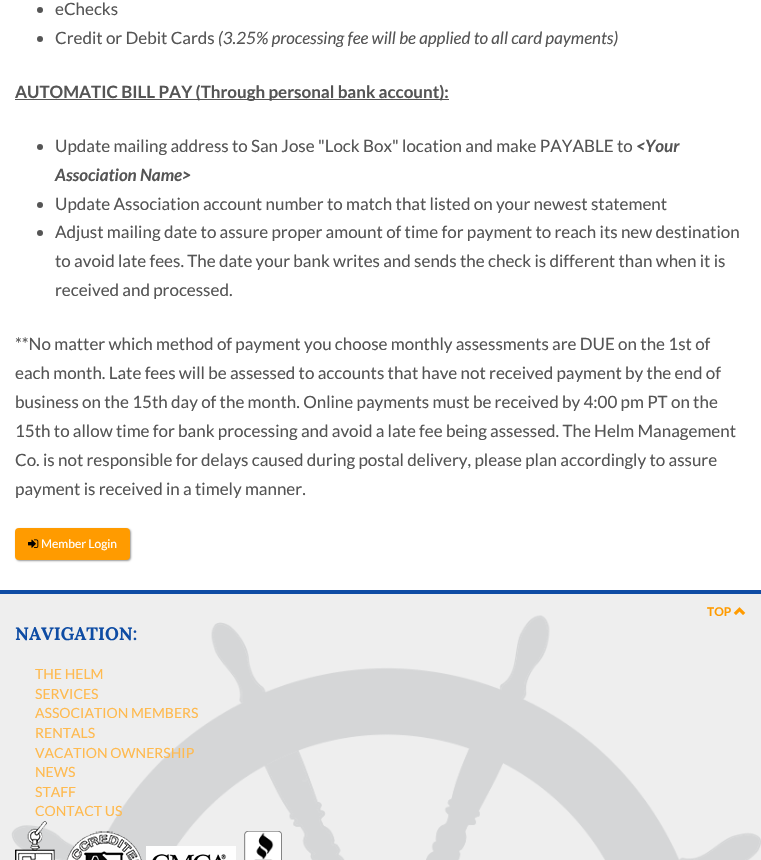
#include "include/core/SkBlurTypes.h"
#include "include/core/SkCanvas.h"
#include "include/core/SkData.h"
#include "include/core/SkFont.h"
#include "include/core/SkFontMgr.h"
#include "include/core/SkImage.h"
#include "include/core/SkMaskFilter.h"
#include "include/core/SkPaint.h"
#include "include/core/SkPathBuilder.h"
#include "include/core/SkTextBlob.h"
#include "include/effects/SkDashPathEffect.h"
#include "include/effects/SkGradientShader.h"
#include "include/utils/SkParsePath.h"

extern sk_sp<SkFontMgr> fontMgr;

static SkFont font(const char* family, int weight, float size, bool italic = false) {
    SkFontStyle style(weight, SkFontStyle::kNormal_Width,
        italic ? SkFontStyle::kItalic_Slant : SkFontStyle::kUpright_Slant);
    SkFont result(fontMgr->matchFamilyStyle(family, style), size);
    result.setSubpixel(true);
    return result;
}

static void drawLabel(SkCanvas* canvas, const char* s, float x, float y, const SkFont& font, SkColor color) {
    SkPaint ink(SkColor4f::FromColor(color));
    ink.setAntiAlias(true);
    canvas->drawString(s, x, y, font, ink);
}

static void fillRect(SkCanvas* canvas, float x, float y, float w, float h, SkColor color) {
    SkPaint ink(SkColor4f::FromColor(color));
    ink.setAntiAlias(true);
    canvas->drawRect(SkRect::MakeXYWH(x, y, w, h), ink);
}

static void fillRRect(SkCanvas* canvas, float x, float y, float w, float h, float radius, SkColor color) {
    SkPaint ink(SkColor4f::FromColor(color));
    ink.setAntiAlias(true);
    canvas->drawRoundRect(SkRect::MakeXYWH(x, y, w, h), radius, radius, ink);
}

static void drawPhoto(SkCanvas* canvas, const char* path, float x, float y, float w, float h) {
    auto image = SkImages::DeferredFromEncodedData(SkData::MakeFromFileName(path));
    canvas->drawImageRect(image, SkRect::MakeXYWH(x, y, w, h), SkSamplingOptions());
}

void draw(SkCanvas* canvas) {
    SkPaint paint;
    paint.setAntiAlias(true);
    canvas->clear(0xFFFFFFFF);
    paint.setColor(0xFF555555);
    canvas->drawCircle(40, 10, 3, paint);
    SkFont font1 = font("Lato", 400, 17);
    drawLabel(canvas, "eChecks", 55, 15, font1, 0xFF555555);
    canvas->drawCircle(40, 39, 3, paint);
    drawLabel(canvas, "Credit or Debit Cards", 55, 44, font1, 0xFF555555);
    SkFont font2 = font("Lato", 400, 17, true);
    drawLabel(canvas, "(3.25% processing fee will be applied to all card payments)", 218, 44, font2, 0xFF555555);
    fillRect(canvas, 15, 99, 434, 1, 0xFF555555);
    SkFont font3 = font("Lato", 700, 17);
    drawLabel(canvas, "AUTOMATIC BILL PAY (Through personal bank account):", 15, 98, font3, 0xFF555555);
    canvas->drawCircle(40, 147, 3, paint);
    drawLabel(canvas, "Update mailing address to San Jose \"Lock Box\" location and make PAYABLE to", 55, 152, font1, 0xFF555555);
    SkFont font4 = font("Lato", 700, 17, true);
    drawLabel(canvas, "<Your", 636, 152, font4, 0xFF555555);
    drawLabel(canvas, "Association Name>", 55, 181, font4, 0xFF555555);
    canvas->drawCircle(40, 205, 3, paint);
    drawLabel(canvas, "Update Association account number to match that listed on your newest statement", 55, 210, font1, 0xFF555555);
    canvas->drawCircle(40, 233, 3, paint);
    drawLabel(canvas, "Adjust mailing date to assure proper amount of time for payment to reach its new destination", 55, 238, font1, 0xFF555555);
    drawLabel(canvas, "to avoid late fees. The date your bank writes and sends the check is different than when it is", 55, 267, font1, 0xFF555555);
    drawLabel(canvas, "received and processed.", 55, 296, font1, 0xFF555555);
    drawLabel(canvas, "**No matter which method of payment you choose monthly assessments are DUE on the 1st of", 15, 350, font1, 0xFF555555);
    drawLabel(canvas, "each month. Late fees will be assessed to accounts that have not received payment by the end of", 15, 379, font1, 0xFF555555);
    drawLabel(canvas, "business on the 15th day of the month. Online payments must be received by 4:00 pm PT on the", 15, 408, font1, 0xFF555555);
    drawLabel(canvas, "15th to allow time for bank processing and avoid a late fee being assessed. The Helm Management", 15, 437, font1, 0xFF555555);
    drawLabel(canvas, "Co. is not responsible for delays caused during postal delivery, please plan accordingly to assure", 15, 466, font1, 0xFF555555);
    drawLabel(canvas, "payment is received in a timely manner.", 15, 495, font1, 0xFF555555);
    paint.setColor(0x66000000);
    paint.setMaskFilter(SkMaskFilter::MakeBlur(kNormal_SkBlurStyle, 1));
    canvas->drawRoundRect(SkRect::MakeXYWH(16, 529, 115, 32), 4, 4, paint);
    paint.setMaskFilter(nullptr);
    fillRRect(canvas, 15, 528, 115, 32, 4, 0xFFFF9B00);
    drawPhoto(canvas, "assets/img1.png", 28, 539, 11, 9);
    SkFont font5 = font("Lato", 400, 12);
    drawLabel(canvas, "Member Login", 41, 548, font5, 0xFFFFFFFF);
    fillRect(canvas, 0, 594, 761, 266, 0xFFEEEEEE);
    fillRect(canvas, 0, 590, 761, 4, 0xFF0E4CA4);
    drawPhoto(canvas, "assets/img2.png", 11, 615, 750, 245);
    SkFont font6 = font("Lato", 700, 12);
    drawLabel(canvas, "TOP", 707, 616, font6, 0xFFFF9B00);
    drawPhoto(canvas, "assets/img3.png", 733, 607, 13, 8);
    SkFont font7 = font("Lora", 700, 18);
    drawLabel(canvas, "NAVIGATION:", 15, 640, font7, 0xFF0E4CA4);
    SkFont font8 = font("Lato", 400, 14);
    drawLabel(canvas, "THE HELM", 35, 679, font8, 0xFFFFBA4F);
    drawLabel(canvas, "SERVICES", 35, 699, font8, 0xFFFFBA4F);
    drawLabel(canvas, "ASSOCIATION MEMBERS", 35, 718, font8, 0xFFFFBA4F);
    drawLabel(canvas, "RENTALS", 35, 738, font8, 0xFFFFBA4F);
    drawLabel(canvas, "VACATION OWNERSHIP", 35, 758, font8, 0xFFFFBA4F);
    drawLabel(canvas, "NEWS", 35, 777, font8, 0xFFFFBA4F);
    drawLabel(canvas, "STAFF", 35, 797, font8, 0xFFFFBA4F);
    drawLabel(canvas, "CONTACT US", 35, 816, font8, 0xFFFFBA4F);
    drawPhoto(canvas, "assets/img4.png", 15, 821, 40, 39);
    drawPhoto(canvas, "assets/img5.png", 66, 831, 76, 29);
    drawPhoto(canvas, "assets/img6.png", 146, 846, 90, 14);
    drawPhoto(canvas, "assets/img7.png", 244, 831, 38, 29);
}
